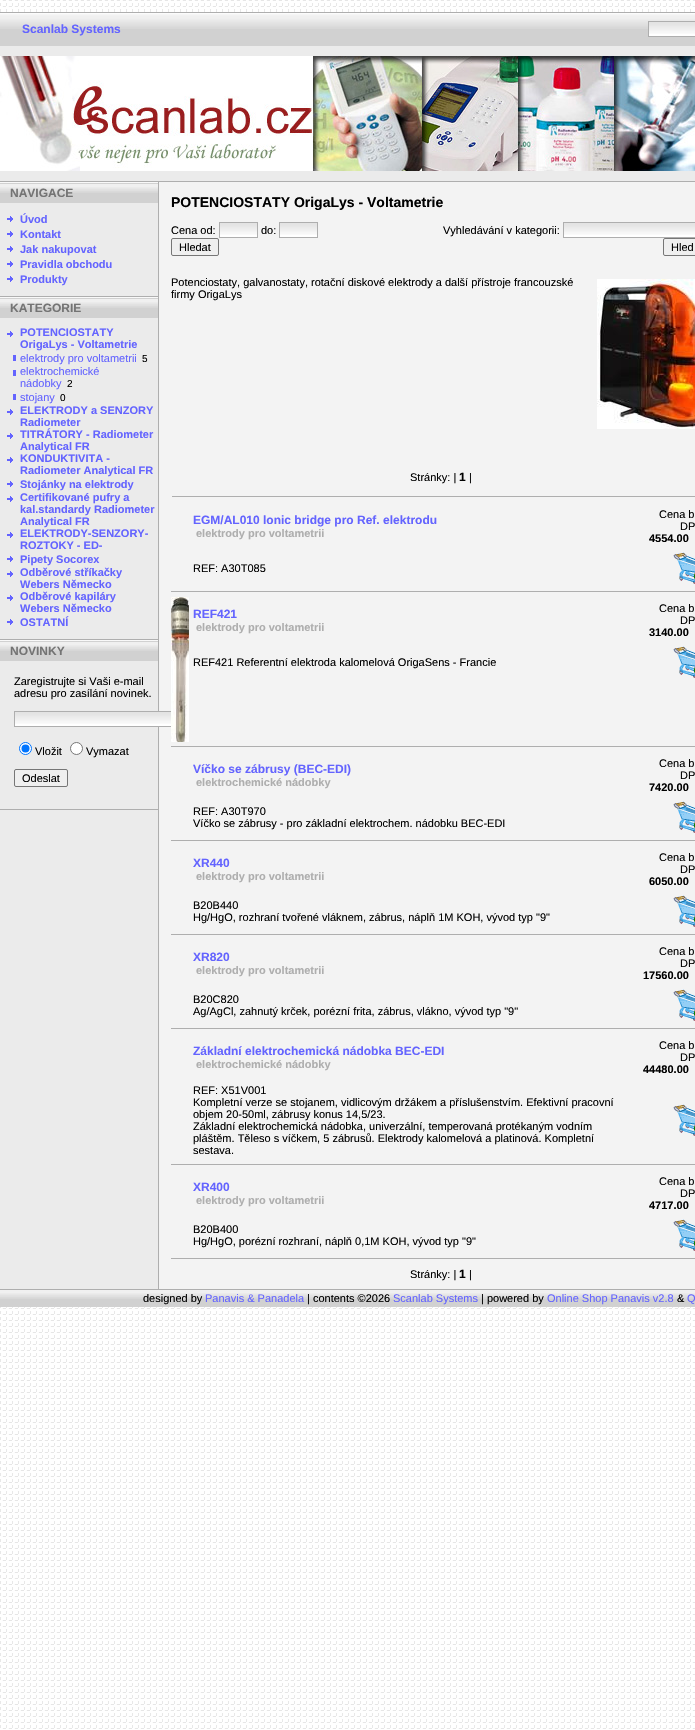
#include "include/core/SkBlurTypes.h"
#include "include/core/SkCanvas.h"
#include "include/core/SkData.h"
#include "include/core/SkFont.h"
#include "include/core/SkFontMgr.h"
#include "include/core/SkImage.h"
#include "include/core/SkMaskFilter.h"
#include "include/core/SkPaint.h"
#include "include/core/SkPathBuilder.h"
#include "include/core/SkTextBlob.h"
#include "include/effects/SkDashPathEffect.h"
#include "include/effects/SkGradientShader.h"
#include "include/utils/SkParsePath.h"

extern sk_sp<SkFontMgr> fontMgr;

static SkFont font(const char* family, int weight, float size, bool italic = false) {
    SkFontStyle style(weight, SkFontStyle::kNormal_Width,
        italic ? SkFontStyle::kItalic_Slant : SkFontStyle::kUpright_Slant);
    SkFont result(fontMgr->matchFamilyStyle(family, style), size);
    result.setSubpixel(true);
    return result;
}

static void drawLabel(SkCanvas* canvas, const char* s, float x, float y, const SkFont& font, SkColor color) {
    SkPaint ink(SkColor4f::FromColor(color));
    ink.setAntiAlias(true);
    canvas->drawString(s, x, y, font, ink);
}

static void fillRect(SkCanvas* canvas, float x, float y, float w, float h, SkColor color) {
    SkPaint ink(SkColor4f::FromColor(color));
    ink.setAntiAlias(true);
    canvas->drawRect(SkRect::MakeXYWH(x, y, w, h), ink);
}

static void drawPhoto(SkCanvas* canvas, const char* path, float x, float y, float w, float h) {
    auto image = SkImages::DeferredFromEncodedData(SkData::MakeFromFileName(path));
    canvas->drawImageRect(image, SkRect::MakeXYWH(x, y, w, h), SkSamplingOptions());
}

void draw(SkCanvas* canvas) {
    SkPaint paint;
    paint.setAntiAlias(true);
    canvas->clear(0xFFFFFFFF);
    drawPhoto(canvas, "assets/img1.png", 0, 0, 695, 1729);
    fillRect(canvas, 0, 29, 695, 17, 0xFFD1D1D1);
    drawPhoto(canvas, "assets/img2.png", 0, 12, 595, 17);
    SkFont font1 = font("Liberation Sans", 700, 12);
    drawLabel(canvas, "Scanlab Systems", 22, 33, font1, 0xFF6464FF);
    drawPhoto(canvas, "assets/img3.png", 595, 12, 100, 17);
    fillRect(canvas, 649, 34, 46, 2, 0xFFFFFFFF);
    drawPhoto(canvas, "assets/img4.png", 649, 22, 46, 12);
    paint.setStroke(true);
    paint.setStrokeWidth(1);
    paint.setColor(0xFFAEAEAE);
    canvas->drawRect(SkRect::MakeXYWH(648.5f, 21.5f, 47, 15), paint);
    fillRect(canvas, 0, 46, 695, 135, 0xFFEBEBEB);
    drawPhoto(canvas, "assets/img5.png", 0, 56, 695, 115);
    fillRect(canvas, 0, 181, 695, 1, 0xFFAEAEAE);
    fillRect(canvas, 0, 203, 158, 1086, 0xFFEBEBEB);
    fillRect(canvas, 0, 193, 158, 10, 0xFFD1D1D1);
    drawPhoto(canvas, "assets/img6.png", 0, 182, 158, 11);
    drawLabel(canvas, "NAVIGACE", 10, 197, font1, 0xFF747474);
    drawPhoto(canvas, "assets/img7.png", 7, 216, 6, 6);
    SkFont font2 = font("Liberation Sans", 700, 11);
    drawLabel(canvas, "Úvod", 20, 223, font2, 0xFF6464FF);
    drawPhoto(canvas, "assets/img7.png", 7, 231, 6, 6);
    drawLabel(canvas, "Kontakt", 20, 238, font2, 0xFF6464FF);
    drawPhoto(canvas, "assets/img7.png", 7, 246, 6, 6);
    drawLabel(canvas, "Jak nakupovat", 20, 253, font2, 0xFF6464FF);
    drawPhoto(canvas, "assets/img7.png", 7, 261, 6, 6);
    drawLabel(canvas, "Pravidla obchodu", 20, 268, font2, 0xFF6464FF);
    drawPhoto(canvas, "assets/img7.png", 7, 276, 6, 6);
    drawLabel(canvas, "Produkty", 20, 283, font2, 0xFF6464FF);
    fillRect(canvas, 0, 296, 158, 1, 0xFFAEAEAE);
    fillRect(canvas, 0, 308, 158, 10, 0xFFD1D1D1);
    drawPhoto(canvas, "assets/img6.png", 0, 297, 158, 11);
    drawLabel(canvas, "KATEGORIE", 10, 312, font1, 0xFF747474);
    drawPhoto(canvas, "assets/img7.png", 7, 331, 6, 6);
    drawLabel(canvas, "POTENCIOSTATY", 20, 336, font2, 0xFF6464FF);
    drawLabel(canvas, "OrigaLys - Voltametrie", 20, 348, font2, 0xFF6464FF);
    fillRect(canvas, 13, 355, 3, 6, 0xFF6464FF);
    SkFont font3 = font("Liberation Sans", 400, 11);
    drawLabel(canvas, "elektrody pro voltametrii", 20, 362, font3, 0xFF6464FF);
    SkFont font4 = font("Liberation Sans", 400, 10);
    drawLabel(canvas, "5", 142, 362, font4, 0xFF000000);
    fillRect(canvas, 13, 370, 3, 6, 0xFF6464FF);
    drawLabel(canvas, "elektrochemické", 20, 375, font3, 0xFF6464FF);
    drawLabel(canvas, "nádobky", 20, 387, font3, 0xFF6464FF);
    drawLabel(canvas, "2", 67, 387, font4, 0xFF000000);
    fillRect(canvas, 13, 394, 3, 6, 0xFF6464FF);
    drawLabel(canvas, "stojany", 20, 401, font3, 0xFF6464FF);
    drawLabel(canvas, "0", 60, 401, font4, 0xFF000000);
    drawPhoto(canvas, "assets/img7.png", 7, 409, 6, 6);
    drawLabel(canvas, "ELEKTRODY a SENZORY", 20, 414, font2, 0xFF6464FF);
    drawLabel(canvas, "Radiometer", 20, 426, font2, 0xFF6464FF);
    drawPhoto(canvas, "assets/img7.png", 7, 433, 6, 6);
    drawLabel(canvas, "TITRÁTORY - Radiometer", 20, 438, font2, 0xFF6464FF);
    drawLabel(canvas, "Analytical FR", 20, 450, font2, 0xFF6464FF);
    drawPhoto(canvas, "assets/img7.png", 7, 457, 6, 6);
    drawLabel(canvas, "KONDUKTIVITA -", 20, 462, font2, 0xFF6464FF);
    drawLabel(canvas, "Radiometer Analytical FR", 20, 474, font2, 0xFF6464FF);
    drawPhoto(canvas, "assets/img7.png", 7, 481, 6, 6);
    drawLabel(canvas, "Stojánky na elektrody", 20, 488, font2, 0xFF6464FF);
    drawPhoto(canvas, "assets/img7.png", 7, 496, 6, 6);
    drawLabel(canvas, "Certifikované pufry a", 20, 501, font2, 0xFF6464FF);
    drawLabel(canvas, "kal.standardy Radiometer", 20, 513, font2, 0xFF6464FF);
    drawLabel(canvas, "Analytical FR", 20, 525, font2, 0xFF6464FF);
    drawPhoto(canvas, "assets/img7.png", 7, 532, 6, 6);
    drawLabel(canvas, "ELEKTRODY-SENZORY-", 20, 537, font2, 0xFF6464FF);
    drawLabel(canvas, "ROZTOKY - ED-", 20, 549, font2, 0xFF6464FF);
    drawPhoto(canvas, "assets/img7.png", 7, 556, 6, 6);
    drawLabel(canvas, "Pipety Socorex", 20, 563, font2, 0xFF6464FF);
    drawPhoto(canvas, "assets/img7.png", 7, 571, 6, 6);
    drawLabel(canvas, "Odběrové stříkačky", 20, 576, font2, 0xFF6464FF);
    drawLabel(canvas, "Webers Německo", 20, 588, font2, 0xFF6464FF);
    drawPhoto(canvas, "assets/img7.png", 7, 595, 6, 6);
    drawLabel(canvas, "Odběrové kapiláry", 20, 600, font2, 0xFF6464FF);
    drawLabel(canvas, "Webers Německo", 20, 612, font2, 0xFF6464FF);
    drawPhoto(canvas, "assets/img7.png", 7, 619, 6, 6);
    drawLabel(canvas, "OSTATNÍ", 20, 626, font2, 0xFF6464FF);
    fillRect(canvas, 0, 639, 158, 1, 0xFFAEAEAE);
    fillRect(canvas, 0, 651, 158, 10, 0xFFD1D1D1);
    drawPhoto(canvas, "assets/img6.png", 0, 640, 158, 11);
    drawLabel(canvas, "NOVINKY", 10, 655, font1, 0xFF747474);
    drawLabel(canvas, "Zaregistrujte si Vaši e-mail", 14, 685, font3, 0xFF000000);
    drawLabel(canvas, "adresu pro zasílání novinek.", 14, 697, font3, 0xFF000000);
    fillRect(canvas, 158, 182, 1, 1107, 0xFFAEAEAE);
    fillRect(canvas, 159, 182, 536, 1107, 0xFFF3F3F3);
    fillRect(canvas, 15, 724, 156, 2, 0xFFFFFFFF);
    drawPhoto(canvas, "assets/img8.png", 15, 712, 156, 12);
    canvas->drawRect(SkRect::MakeXYWH(14.5f, 711.5f, 159, 15), paint);
    paint.setStroke(false);
    paint.setColor(0xFFFFFFFF);
    canvas->drawCircle(25.5f, 748.5f, 6, paint);
    paint.setStroke(true);
    paint.setColor(0xFF0075FF);
    canvas->drawCircle(25.5f, 748.5f, 6, paint);
    paint.setStroke(false);
    canvas->drawCircle(25.5f, 748.5f, 4, paint);
    drawLabel(canvas, "Vložit", 35, 755, font3, 0xFF000000);
    paint.setColor(0xFFFFFFFF);
    canvas->drawCircle(76.5f, 748.5f, 6, paint);
    paint.setStroke(true);
    paint.setColor(0xFF767676);
    canvas->drawCircle(76.5f, 748.5f, 6, paint);
    drawLabel(canvas, "Vymazat", 86, 755, font3, 0xFF000000);
    paint.setStroke(false);
    paint.setColor(0xFFEFEFEF);
    canvas->drawRoundRect(SkRect::MakeXYWH(14.5f, 769.5f, 53, 17), 1.5f, 1.5f, paint);
    paint.setStroke(true);
    paint.setColor(0xFF767676);
    canvas->drawRoundRect(SkRect::MakeXYWH(14.5f, 769.5f, 53, 17), 1.5f, 1.5f, paint);
    drawLabel(canvas, "Odeslat", 22, 782, font3, 0xFF000000);
    fillRect(canvas, 0, 809, 158, 1, 0xFFAEAEAE);
    SkFont font5 = font("Liberation Sans", 700, 14);
    drawLabel(canvas, "POTENCIOSTATY OrigaLys - Voltametrie", 171, 207, font5, 0xFF000000);
    drawLabel(canvas, "Cena od:", 171, 234, font3, 0xFF000000);
    fillRect(canvas, 220, 235, 37, 2, 0xFFFFFFFF);
    drawPhoto(canvas, "assets/img9.png", 220, 223, 37, 12);
    paint.setColor(0xFFAEAEAE);
    canvas->drawRect(SkRect::MakeXYWH(219.5f, 222.5f, 38, 15), paint);
    drawLabel(canvas, "do:", 261, 234, font3, 0xFF000000);
    fillRect(canvas, 280, 235, 37, 2, 0xFFFFFFFF);
    drawPhoto(canvas, "assets/img9.png", 280, 223, 37, 12);
    canvas->drawRect(SkRect::MakeXYWH(279.5f, 222.5f, 38, 15), paint);
    paint.setStroke(false);
    paint.setColor(0xFFEFEFEF);
    canvas->drawRoundRect(SkRect::MakeXYWH(171.5f, 238.5f, 47, 17), 1.5f, 1.5f, paint);
    paint.setStroke(true);
    paint.setColor(0xFF767676);
    canvas->drawRoundRect(SkRect::MakeXYWH(171.5f, 238.5f, 47, 17), 1.5f, 1.5f, paint);
    drawLabel(canvas, "Hledat", 179, 251, font3, 0xFF000000);
    drawLabel(canvas, "Vyhledávání v kategorii:", 443, 234, font3, 0xFF000000);
    fillRect(canvas, 564, 235, 131, 2, 0xFFFFFFFF);
    drawPhoto(canvas, "assets/img10.png", 564, 223, 131, 12);
    paint.setColor(0xFFAEAEAE);
    canvas->drawRect(SkRect::MakeXYWH(563.5f, 222.5f, 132, 15), paint);
    paint.setStroke(false);
    paint.setColor(0xFFEFEFEF);
    canvas->drawRoundRect(SkRect::MakeXYWH(663.5f, 238.5f, 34, 17), 1.5f, 1.5f, paint);
    paint.setStroke(true);
    paint.setColor(0xFF767676);
    canvas->drawRoundRect(SkRect::MakeXYWH(663.5f, 238.5f, 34, 17), 1.5f, 1.5f, paint);
    drawLabel(canvas, "Hled", 671, 251, font3, 0xFF000000);
    drawLabel(canvas, "Potenciostaty, galvanostaty, rotační diskové elektrody a další přístroje francouzské", 171, 286, font3, 0xFF000000);
    drawLabel(canvas, "firmy OrigaLys", 171, 298, font3, 0xFF000000);
    drawPhoto(canvas, "assets/img11.png", 597, 279, 98, 150);
    drawLabel(canvas, "Stránky: |", 410, 481, font3, 0xFF000000);
    drawLabel(canvas, "1", 459, 481, font1, 0xFF000000);
    drawLabel(canvas, "|", 469, 481, font3, 0xFF000000);
    fillRect(canvas, 172, 496, 523, 1, 0xFFAEAEAE);
    drawLabel(canvas, "EGM/AL010 lonic bridge pro Ref. elektrodu", 193, 524, font1, 0xFF6464FF);
    drawLabel(canvas, "elektrody pro voltametrii", 196, 537, font2, 0xFFAEAEAE);
    drawLabel(canvas, "Cena b", 659, 518, font3, 0xFF000000);
    drawLabel(canvas, "DP", 680, 530, font3, 0xFF000000);
    drawLabel(canvas, "4554.00", 649, 542, font2, 0xFF000000);
    drawLabel(canvas, "REF: A30T085", 193, 572, font3, 0xFF000000);
    drawPhoto(canvas, "assets/img12.png", 673, 552, 22, 32);
    fillRect(canvas, 171, 591, 524, 1, 0xFFAEAEAE);
    fillRect(canvas, 171, 746, 524, 1, 0xFFAEAEAE);
    drawPhoto(canvas, "assets/img13.png", 171, 597, 18, 145);
    drawLabel(canvas, "REF421", 193, 618, font1, 0xFF6464FF);
    drawLabel(canvas, "elektrody pro voltametrii", 196, 631, font2, 0xFFAEAEAE);
    drawLabel(canvas, "Cena b", 659, 612, font3, 0xFF000000);
    drawLabel(canvas, "DP", 680, 624, font3, 0xFF000000);
    drawLabel(canvas, "3140.00", 649, 636, font2, 0xFF000000);
    drawLabel(canvas, "REF421 Referentní elektroda kalomelová OrigaSens - Francie", 193, 666, font3, 0xFF000000);
    drawPhoto(canvas, "assets/img12.png", 673, 646, 22, 32);
    drawLabel(canvas, "Víčko se zábrusy (BEC-EDI)", 193, 773, font1, 0xFF6464FF);
    drawLabel(canvas, "elektrochemické nádobky", 196, 786, font2, 0xFFAEAEAE);
    drawLabel(canvas, "Cena b", 659, 767, font3, 0xFF000000);
    drawLabel(canvas, "DP", 680, 779, font3, 0xFF000000);
    drawLabel(canvas, "7420.00", 649, 791, font2, 0xFF000000);
    drawLabel(canvas, "REF: A30T970", 193, 815, font3, 0xFF000000);
    drawLabel(canvas, "Víčko se zábrusy - pro základní elektrochem. nádobku BEC-EDI", 193, 827, font3, 0xFF000000);
    drawPhoto(canvas, "assets/img12.png", 673, 801, 22, 32);
    fillRect(canvas, 171, 840, 524, 1, 0xFFAEAEAE);
    drawLabel(canvas, "XR440", 193, 867, font1, 0xFF6464FF);
    drawLabel(canvas, "elektrody pro voltametrii", 196, 880, font2, 0xFFAEAEAE);
    drawLabel(canvas, "Cena b", 659, 861, font3, 0xFF000000);
    drawLabel(canvas, "DP", 680, 873, font3, 0xFF000000);
    drawLabel(canvas, "6050.00", 649, 885, font2, 0xFF000000);
    drawLabel(canvas, "B20B440", 193, 909, font3, 0xFF000000);
    drawLabel(canvas, "Hg/HgO, rozhraní tvořené vláknem, zábrus, náplň 1M KOH, vývod typ \"9\"", 193, 921, font3, 0xFF000000);
    drawPhoto(canvas, "assets/img12.png", 673, 895, 22, 32);
    fillRect(canvas, 171, 934, 524, 1, 0xFFAEAEAE);
    drawLabel(canvas, "XR820", 193, 961, font1, 0xFF6464FF);
    drawLabel(canvas, "elektrody pro voltametrii", 196, 974, font2, 0xFFAEAEAE);
    drawLabel(canvas, "Cena b", 659, 955, font3, 0xFF000000);
    drawLabel(canvas, "DP", 680, 967, font3, 0xFF000000);
    drawLabel(canvas, "17560.00", 643, 979, font2, 0xFF000000);
    drawLabel(canvas, "B20C820", 193, 1003, font3, 0xFF000000);
    drawLabel(canvas, "Ag/AgCl, zahnutý krček, porézní frita, zábrus, vlákno, vývod typ \"9\"", 193, 1015, font3, 0xFF000000);
    drawPhoto(canvas, "assets/img12.png", 673, 989, 22, 32);
    fillRect(canvas, 171, 1028, 524, 1, 0xFFAEAEAE);
    drawLabel(canvas, "Základní elektrochemická nádobka BEC-EDI", 193, 1055, font1, 0xFF6464FF);
    drawLabel(canvas, "elektrochemické nádobky", 196, 1068, font2, 0xFFAEAEAE);
    drawLabel(canvas, "Cena b", 659, 1049, font3, 0xFF000000);
    drawLabel(canvas, "DP", 680, 1061, font3, 0xFF000000);
    drawLabel(canvas, "44480.00", 643, 1073, font2, 0xFF000000);
    drawLabel(canvas, "REF: X51V001", 193, 1094, font3, 0xFF000000);
    drawLabel(canvas, "Kompletní verze se stojanem, vidlicovým držákem a příslušenstvím. Efektivní pracovní", 193, 1106, font3, 0xFF000000);
    drawLabel(canvas, "objem 20-50ml, zábrusy konus 14,5/23.", 193, 1118, font3, 0xFF000000);
    drawLabel(canvas, "Základní elektrochemická nádobka, univerzální, temperovaná protékaným vodním", 193, 1130, font3, 0xFF000000);
    drawLabel(canvas, "pláštěm. Těleso s víčkem, 5 zábrusů. Elektrody kalomelová a platinová. Kompletní", 193, 1142, font3, 0xFF000000);
    drawLabel(canvas, "sestava.", 193, 1154, font3, 0xFF000000);
    drawPhoto(canvas, "assets/img12.png", 673, 1104, 22, 32);
    fillRect(canvas, 171, 1164, 524, 1, 0xFFAEAEAE);
    drawLabel(canvas, "XR400", 193, 1191, font1, 0xFF6464FF);
    drawLabel(canvas, "elektrody pro voltametrii", 196, 1204, font2, 0xFFAEAEAE);
    drawLabel(canvas, "Cena b", 659, 1185, font3, 0xFF000000);
    drawLabel(canvas, "DP", 680, 1197, font3, 0xFF000000);
    drawLabel(canvas, "4717.00", 649, 1209, font2, 0xFF000000);
    drawLabel(canvas, "B20B400", 193, 1233, font3, 0xFF000000);
    drawLabel(canvas, "Hg/HgO, porézní rozhraní, náplň 0,1M KOH, vývod typ \"9\"", 193, 1245, font3, 0xFF000000);
    drawPhoto(canvas, "assets/img12.png", 673, 1219, 22, 32);
    fillRect(canvas, 171, 1258, 524, 1, 0xFFAEAEAE);
    drawLabel(canvas, "Stránky: |", 410, 1278, font3, 0xFF000000);
    drawLabel(canvas, "1", 459, 1278, font1, 0xFF000000);
    drawLabel(canvas, "|", 469, 1278, font3, 0xFF000000);
    fillRect(canvas, 0, 1299, 695, 8, 0xFFD1D1D1);
    drawPhoto(canvas, "assets/img14.png", 0, 1289, 695, 10);
    drawLabel(canvas, "designed by", 143, 1302, font3, 0xFF000000);
    drawLabel(canvas, "Panavis & Panadela", 205, 1302, font3, 0xFF6464FF);
    drawLabel(canvas, "| contents ©2026", 307, 1302, font3, 0xFF000000);
    drawLabel(canvas, "Scanlab Systems", 393, 1302, font3, 0xFF6464FF);
    drawLabel(canvas, "| powered by", 481, 1302, font3, 0xFF000000);
    drawLabel(canvas, "Online Shop Panavis v2.8", 547, 1302, font3, 0xFF6464FF);
    drawLabel(canvas, "&", 677, 1302, font3, 0xFF000000);
    drawLabel(canvas, "Q", 687, 1302, font3, 0xFF6464FF);
}
